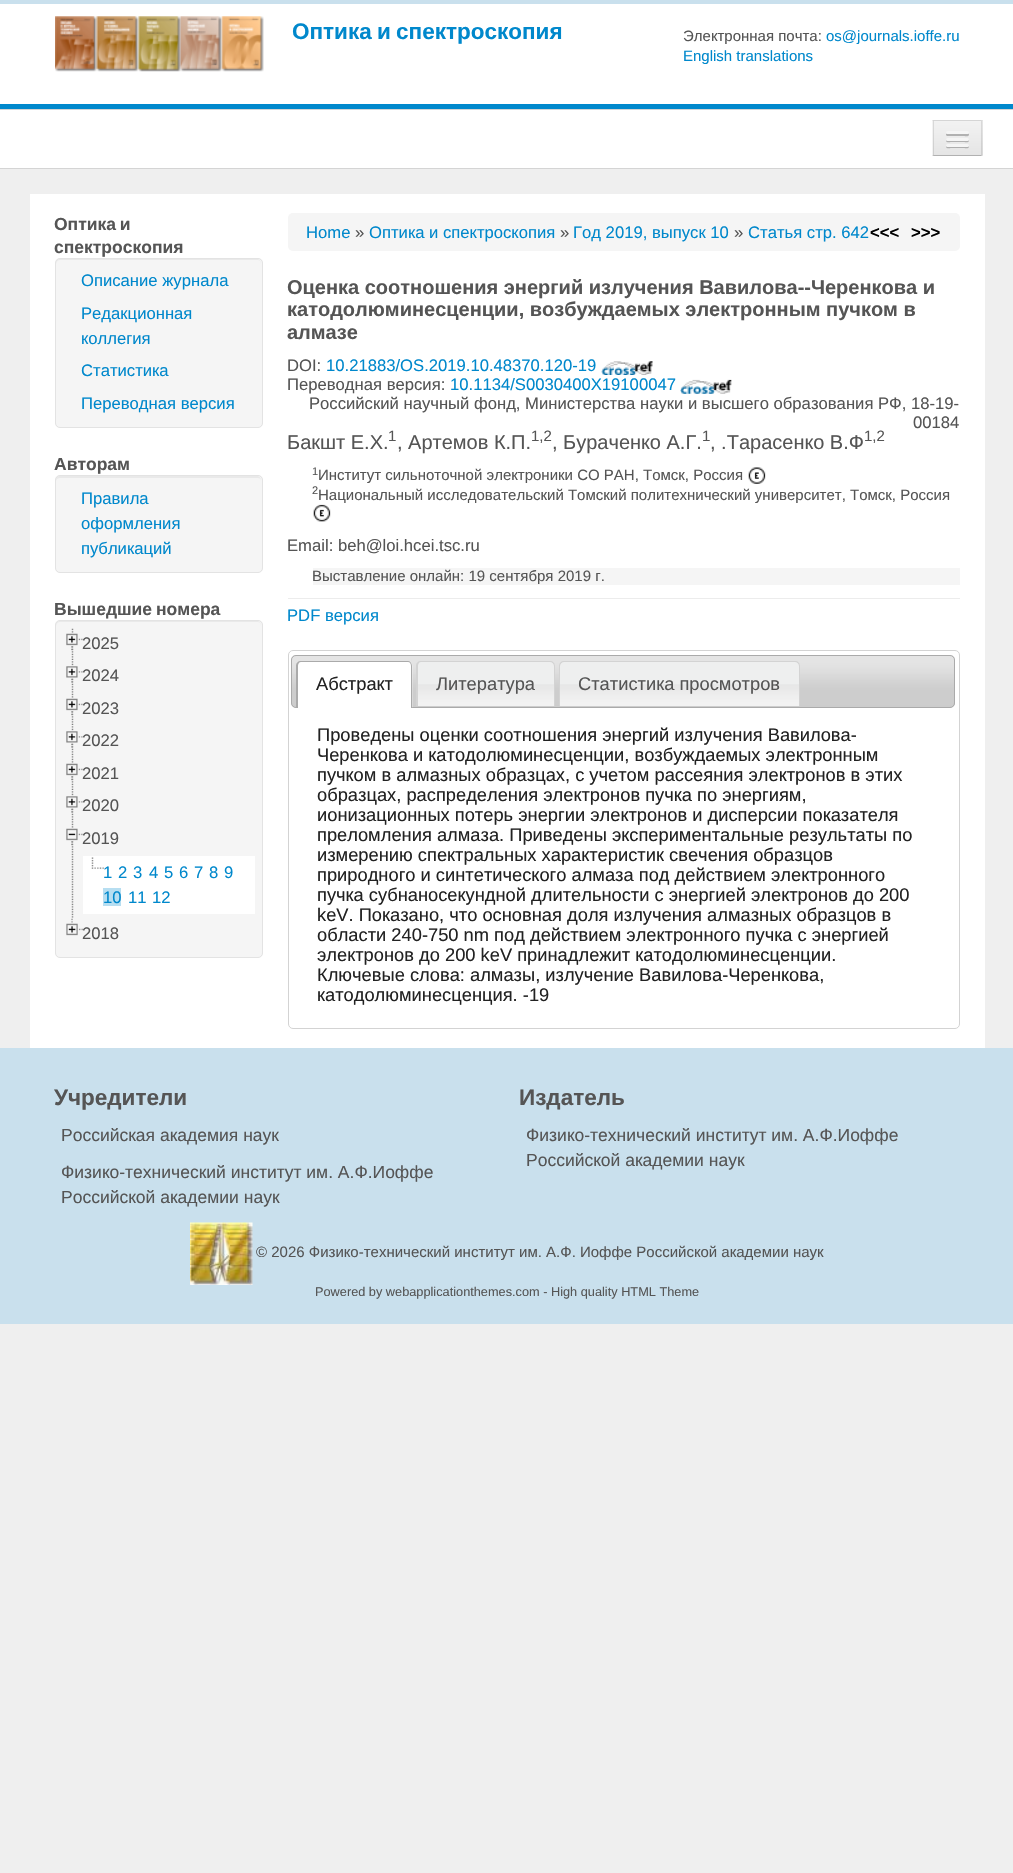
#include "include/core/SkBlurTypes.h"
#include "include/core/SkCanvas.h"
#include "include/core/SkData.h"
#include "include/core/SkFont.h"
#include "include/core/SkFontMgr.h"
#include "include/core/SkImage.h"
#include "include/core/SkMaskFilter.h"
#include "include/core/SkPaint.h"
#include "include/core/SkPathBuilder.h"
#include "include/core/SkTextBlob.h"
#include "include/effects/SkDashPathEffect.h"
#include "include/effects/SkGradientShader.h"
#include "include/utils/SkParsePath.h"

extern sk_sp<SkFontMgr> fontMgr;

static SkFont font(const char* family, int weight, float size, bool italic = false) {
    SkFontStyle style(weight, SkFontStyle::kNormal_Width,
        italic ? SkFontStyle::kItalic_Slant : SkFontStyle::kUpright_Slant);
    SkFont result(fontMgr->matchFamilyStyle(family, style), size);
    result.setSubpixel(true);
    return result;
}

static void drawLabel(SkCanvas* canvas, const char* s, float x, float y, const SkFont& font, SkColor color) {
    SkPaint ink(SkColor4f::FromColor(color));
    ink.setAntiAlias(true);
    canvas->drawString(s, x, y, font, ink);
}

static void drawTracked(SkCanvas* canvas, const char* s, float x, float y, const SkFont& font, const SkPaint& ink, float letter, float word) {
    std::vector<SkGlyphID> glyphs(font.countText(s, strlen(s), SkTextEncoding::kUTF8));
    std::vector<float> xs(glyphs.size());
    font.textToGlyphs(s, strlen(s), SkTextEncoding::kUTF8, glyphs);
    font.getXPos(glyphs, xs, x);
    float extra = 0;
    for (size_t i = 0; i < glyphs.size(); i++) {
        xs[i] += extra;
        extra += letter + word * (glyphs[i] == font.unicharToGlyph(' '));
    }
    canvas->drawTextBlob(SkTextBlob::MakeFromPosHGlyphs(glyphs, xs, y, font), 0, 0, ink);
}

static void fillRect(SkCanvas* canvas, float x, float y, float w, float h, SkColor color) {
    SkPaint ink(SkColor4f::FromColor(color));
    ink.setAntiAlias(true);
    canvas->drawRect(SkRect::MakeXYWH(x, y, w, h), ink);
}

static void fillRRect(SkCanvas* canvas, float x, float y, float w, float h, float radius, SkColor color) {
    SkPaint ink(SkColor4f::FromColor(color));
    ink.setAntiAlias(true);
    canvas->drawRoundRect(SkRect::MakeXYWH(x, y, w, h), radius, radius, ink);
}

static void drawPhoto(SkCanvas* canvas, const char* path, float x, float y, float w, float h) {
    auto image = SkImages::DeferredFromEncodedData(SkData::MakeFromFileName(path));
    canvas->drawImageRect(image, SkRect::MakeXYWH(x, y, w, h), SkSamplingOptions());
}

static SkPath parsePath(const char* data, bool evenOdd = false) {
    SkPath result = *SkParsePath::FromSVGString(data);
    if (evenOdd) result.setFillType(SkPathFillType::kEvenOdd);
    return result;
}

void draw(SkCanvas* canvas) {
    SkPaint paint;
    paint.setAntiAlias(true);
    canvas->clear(0xFFEFEFEF);
    fillRect(canvas, 0, 4, 1013, 100, 0xFFFFFFFF);
    fillRect(canvas, 0, 0, 1013, 4, 0xFFC9E0ED);
    fillRect(canvas, 0, 104, 1013, 5, 0xFF0088CC);
    drawPhoto(canvas, "assets/img1.png", 55, 16, 209, 56);
    SkFont font1 = font("Liberation Sans", 700, 22.5f);
    paint.setColor(0xFF0088CC);
    drawTracked(canvas, "Оптика и спектроскопия", 292, 39, font1, paint, 0, -1);
    SkFont font2 = font("Liberation Sans", 400, 15);
    drawLabel(canvas, "Электронная почта:", 683, 41, font2, 0xFF555555);
    drawLabel(canvas, "os@journals.ioffe.ru", 826, 41, font2, 0xFF0088CC);
    drawLabel(canvas, "English translations", 683, 61, font2, 0xFF0088CC);
    fillRect(canvas, 0, 110, 1013, 58, 0xFFFFFFFF);
    fillRect(canvas, 0, 109, 1013, 1, 0xFFD4D4D4);
    fillRect(canvas, 0, 168, 1013, 1, 0xFFD4D4D4);
    fillRect(canvas, 933, 120, 50, 36, 0xFFEDEDED);
    {
        const SkColor colors[] = {0xFFF2F2F2, 0xFFE5E5E5};
        const float stops[] = {0, 1};
        const SkPoint ends[] = {{958, 121}, {958, 155}};
        paint.setShader(SkGradientShader::MakeLinear(ends, colors, stops, 2, SkTileMode::kClamp));
        paint.setAlpha(255);
    }
    canvas->drawRect(SkRect::MakeXYWH(933, 121, 50, 34), paint);
    paint.setShader(nullptr);
    paint.setColor(0xFFD5D5D5);
    canvas->drawPath(parsePath("M932 120H982L981 121H934Z"), paint);
    paint.setColor(0x1A000000);
    canvas->drawPath(parsePath("M982.5 120V156L981 155V121Z"), paint);
    paint.setColor(0x40000000);
    canvas->drawPath(parsePath("M982 156H932L934 155H981Z"), paint);
    paint.setColor(0x1A000000);
    canvas->drawPath(parsePath("M932.5 156V120L934 121V155Z"), paint);
    paint.setColor(0xFFB1B1B1);
    canvas->drawPath(parsePath("M946.5 133.5C945.5 134 946 135.5 947 136H964C965 136 968.5 137 969 135C969 134.5 969 133.5 968.5 133.5C967.5 134 947.5 134 946.5 133.5Z"), paint);
    fillRRect(canvas, 946, 131, 23, 3, 1.5f, 0xFFF5F5F5);
    paint.setColor(0xFFB0B0B0);
    canvas->drawPath(parsePath("M946.5 139.5L946 141C946.5 143 950 142 951 142H964C965 142 968.5 143 969 141L968.5 139.5L967.5 140H947.5Z"), paint);
    fillRRect(canvas, 946, 138, 23, 3, 1.5f, 0xFFF5F5F5);
    paint.setColor(0xFFAEAEAE);
    canvas->drawPath(parsePath("M946.5 145.5L946 147C946.5 149 950 148 951 148H964C965 148 968.5 149 969 147L968.5 145.5C968.5 146 968 146 967.5 146H947.5C947 146 946.5 146 946.5 145.5Z"), paint);
    fillRRect(canvas, 946, 144, 23, 3, 1.5f, 0xFFF5F5F5);
    fillRect(canvas, 30, 194, 955, 854, 0xFFFFFFFF);
    SkFont font3 = font("Liberation Sans", 700, 17.5f);
    paint.setColor(0xFF555555);
    drawTracked(canvas, "Оптика и", 54, 230, font3, paint, 0, -1);
    drawLabel(canvas, "спектроскопия", 54, 253, font3, 0xFF555555);
    fillRRect(canvas, 55, 258, 208, 170, 5, 0xFFF5F5F5);
    paint.setColor(0xFFE9E9E9);
    canvas->drawPath(parsePath("M60 260H258C260 260 261 262 261 264V263C261 261 259 259 257 259H60C58 259 56 261 56 263V264C56 262 58 260 60 260Z"), paint);
    paint.setStroke(true);
    paint.setStrokeWidth(1);
    paint.setColor(0xFFE3E3E3);
    canvas->drawRoundRect(SkRect::MakeXYWH(55.5f, 258.5f, 207, 169), 4.5f, 4.5f, paint);
    SkFont font4 = font("Liberation Sans", 400, 16.65f);
    drawLabel(canvas, "Описание журнала", 81, 286, font4, 0xFF0088CC);
    drawLabel(canvas, "Редакционная", 81, 319, font4, 0xFF0088CC);
    drawLabel(canvas, "коллегия", 81, 344, font4, 0xFF0088CC);
    drawLabel(canvas, "Статистика", 81, 376, font4, 0xFF0088CC);
    drawLabel(canvas, "Переводная версия", 81, 409, font4, 0xFF0088CC);
    drawLabel(canvas, "Авторам", 54, 470, font3, 0xFF555555);
    fillRRect(canvas, 55, 475, 208, 98, 5, 0xFFF5F5F5);
    paint.setStroke(false);
    paint.setColor(0xFFE9E9E9);
    canvas->drawPath(parsePath("M60 478H258C260 478 261 479 261 481V480C261 478 259 476 257 476H60C58 476 56 478 56 480V481C56 479 58 478 60 478Z"), paint);
    paint.setStroke(true);
    paint.setColor(0xFFE3E3E3);
    canvas->drawRoundRect(SkRect::MakeXYWH(55.5f, 475.5f, 207, 97), 4.5f, 4.5f, paint);
    drawLabel(canvas, "Правила", 81, 504, font4, 0xFF0088CC);
    drawLabel(canvas, "оформления", 81, 529, font4, 0xFF0088CC);
    drawLabel(canvas, "публикаций", 81, 554, font4, 0xFF0088CC);
    paint.setStroke(false);
    paint.setColor(0xFF555555);
    drawTracked(canvas, "Вышедшие номера", 54, 615, font3, paint, 0, -1);
    fillRRect(canvas, 55, 620, 208, 338, 5, 0xFFF5F5F5);
    paint.setColor(0xFFE9E9E9);
    canvas->drawPath(parsePath("M60 622H258C260 622 261 624 261 626V625C261 623 259 621 257 621H60C58 621 56 623 56 625V626C56 624 58 622 60 622Z"), paint);
    paint.setStroke(true);
    paint.setColor(0xFFE3E3E3);
    canvas->drawRoundRect(SkRect::MakeXYWH(55.5f, 620.5f, 207, 337), 4.5f, 4.5f, paint);
    drawPhoto(canvas, "assets/img2.png", 71, 628, 3, 32);
    drawPhoto(canvas, "assets/img3.png", 66, 633, 17, 18);
    drawLabel(canvas, "2025", 82, 649, font4, 0xFF555555);
    drawPhoto(canvas, "assets/img4.png", 71, 661, 3, 32);
    drawPhoto(canvas, "assets/img5.png", 66, 666, 17, 17);
    drawLabel(canvas, "2024", 82, 681, font4, 0xFF555555);
    drawPhoto(canvas, "assets/img2.png", 71, 693, 3, 32);
    drawPhoto(canvas, "assets/img3.png", 66, 698, 17, 18);
    drawLabel(canvas, "2023", 82, 714, font4, 0xFF555555);
    drawPhoto(canvas, "assets/img4.png", 71, 726, 3, 32);
    drawPhoto(canvas, "assets/img5.png", 66, 731, 17, 17);
    drawLabel(canvas, "2022", 82, 746, font4, 0xFF555555);
    drawPhoto(canvas, "assets/img2.png", 71, 758, 3, 32);
    drawPhoto(canvas, "assets/img3.png", 66, 763, 17, 18);
    drawLabel(canvas, "2021", 82, 779, font4, 0xFF555555);
    drawPhoto(canvas, "assets/img4.png", 71, 791, 3, 32);
    drawPhoto(canvas, "assets/img5.png", 66, 796, 17, 17);
    drawLabel(canvas, "2020", 82, 811, font4, 0xFF555555);
    drawPhoto(canvas, "assets/img6.png", 71, 823, 3, 95);
    drawPhoto(canvas, "assets/img7.png", 66, 828, 17, 18);
    drawLabel(canvas, "2019", 82, 844, font4, 0xFF555555);
    fillRect(canvas, 83, 856, 172, 58, 0xFFFFFFFF);
    drawPhoto(canvas, "assets/img8.png", 91, 857, 13, 12);
    drawLabel(canvas, "1", 103, 878, font4, 0xFF0088CC);
    drawLabel(canvas, "2", 118, 878, font4, 0xFF0088CC);
    drawLabel(canvas, "3", 133, 878, font4, 0xFF0088CC);
    drawLabel(canvas, "4", 149, 878, font4, 0xFF0088CC);
    drawLabel(canvas, "5", 164, 878, font4, 0xFF0088CC);
    drawLabel(canvas, "6", 179, 878, font4, 0xFF0088CC);
    drawLabel(canvas, "7", 194, 878, font4, 0xFF0088CC);
    drawLabel(canvas, "8", 209, 878, font4, 0xFF0088CC);
    drawLabel(canvas, "9", 224, 878, font4, 0xFF0088CC);
    fillRect(canvas, 103, 888, 18, 18, 0xFFB7DEF1);
    drawLabel(canvas, "10", 103, 903, font4, 0xFF0088CC);
    drawLabel(canvas, "11", 128, 903, font4, 0xFF0088CC);
    drawLabel(canvas, "12", 152, 903, font4, 0xFF0088CC);
    drawPhoto(canvas, "assets/img9.png", 66, 918, 17, 18);
    drawLabel(canvas, "2018", 82, 939, font4, 0xFF555555);
    fillRRect(canvas, 288, 213, 672, 38, 5, 0xFFF5F5F5);
    drawLabel(canvas, "Home", 306, 238, font4, 0xFF0088CC);
    drawLabel(canvas, "»", 355, 238, font4, 0xFF555555);
    drawLabel(canvas, "Оптика и спектроскопия", 369, 238, font4, 0xFF0088CC);
    drawLabel(canvas, "»", 560, 238, font4, 0xFF555555);
    drawLabel(canvas, "Год 2019, выпуск 10", 573, 238, font4, 0xFF0088CC);
    drawLabel(canvas, "»", 734, 238, font4, 0xFF555555);
    drawLabel(canvas, "Статья стр. 642", 748, 238, font4, 0xFF0088CC);
    SkFont font5 = font("Liberation Sans", 700, 16.65f);
    drawLabel(canvas, "<<<", 870, 238, font5, 0xFF000000);
    drawLabel(canvas, ">>>", 911, 238, font5, 0xFF000000);
    SkFont font6 = font("Liberation Sans", 700, 20);
    drawLabel(canvas, "Оценка соотношения энергий излучения Вавилова--Черенкова и", 287, 294, font6, 0xFF555555);
    drawLabel(canvas, "катодолюминесценции, возбуждаемых электронным пучком в", 287, 316, font6, 0xFF555555);
    drawLabel(canvas, "алмазе", 287, 339, font6, 0xFF555555);
    drawLabel(canvas, "DOI:", 287, 371, font4, 0xFF555555);
    drawLabel(canvas, "10.21883/OS.2019.10.48370.120-19", 326, 371, font4, 0xFF0088CC);
    drawPhoto(canvas, "assets/img10.png", 601, 361, 52, 14);
    drawLabel(canvas, "Переводная версия:", 287, 390, font4, 0xFF555555);
    drawLabel(canvas, "10.1134/S0030400X19100047", 450, 390, font4, 0xFF0088CC);
    drawPhoto(canvas, "assets/img11.png", 680, 379, 52, 15);
    drawLabel(canvas, "Российский научный фонд, Министерства науки и высшего образования РФ, 18-19-", 309, 409, font4, 0xFF555555);
    drawLabel(canvas, "00184", 913, 428, font4, 0xFF555555);
    SkFont font7 = font("Liberation Sans", 400, 20);
    drawLabel(canvas, "Бакшт Е.Х.", 287, 449, font7, 0xFF555555);
    drawLabel(canvas, "1", 388, 441, font2, 0xFF555555);
    drawLabel(canvas, ", Артемов К.П.", 397, 449, font7, 0xFF555555);
    drawLabel(canvas, "1,2", 531, 441, font2, 0xFF555555);
    drawLabel(canvas, ", Бураченко А.Г.", 552, 449, font7, 0xFF555555);
    drawLabel(canvas, "1", 702, 441, font2, 0xFF555555);
    drawLabel(canvas, ", .Тарасенко В.Ф", 710, 449, font7, 0xFF555555);
    drawLabel(canvas, "1,2", 864, 441, font2, 0xFF555555);
    SkFont font8 = font("Liberation Sans", 400, 11);
    drawLabel(canvas, "1", 312, 475, font8, 0xFF555555);
    drawLabel(canvas, "Институт сильноточной электроники СО РАН, Томск, Россия", 318, 480, font2, 0xFF555555);
    drawPhoto(canvas, "assets/img12.png", 748, 467, 18, 17);
    drawLabel(canvas, "2", 312, 494, font8, 0xFF555555);
    drawLabel(canvas, "Национальный исследовательский Томский политехнический университет, Томск, Россия", 318, 500, font2, 0xFF555555);
    drawPhoto(canvas, "assets/img13.png", 313, 504, 18, 18);
    drawLabel(canvas, "Email: beh@loi.hcei.tsc.ru", 287, 551, font4, 0xFF555555);
    fillRect(canvas, 313, 568, 647, 17, 0xFFF5F5F5);
    drawLabel(canvas, "Выставление онлайн: 19 сентября 2019 г.", 312, 581, font2, 0xFF555555);
    fillRect(canvas, 288, 598, 672, 1, 0xFFECECEC);
    drawLabel(canvas, "PDF версия", 287, 621, font4, 0xFF0088CC);
    paint.setColor(0xFFD3D3D3);
    canvas->drawRoundRect(SkRect::MakeXYWH(288.5f, 650.5f, 671, 378), 4.5f, 4.5f, paint);
    fillRRect(canvas, 291, 655, 664, 53, 5, 0xFFCCCCCC);
    drawPhoto(canvas, "assets/img14.png", 291, 655, 664, 50);
    paint.setColor(0xFFAAAAAA);
    canvas->drawRoundRect(SkRect::MakeXYWH(291.5f, 655.5f, 663, 52), 4.5f, 4.5f, paint);
    fillRect(canvas, 298, 707, 113, 1, 0xFFFFFFFF);
    drawPhoto(canvas, "assets/img15.png", 296, 661, 117, 47);
    paint.setStroke(false);
    canvas->drawPath(parsePath("M301 661H408C410 661 412 663 412 666V708H296V666C296 663 298 661 301 661ZM301 662H408C410 662 411 664 411 666V708H298V666C298 664 299 662 301 662Z", true), paint);
    SkFont font9 = font("Liberation Sans", 400, 18.3f);
    drawLabel(canvas, "Абстракт", 316, 690, font9, 0xFF222222);
    drawPhoto(canvas, "assets/img16.png", 416, 661, 139, 45);
    paint.setColor(0xFFD3D3D3);
    canvas->drawPath(parsePath("M421 661H550C553 661 555 663 555 666V706H416V666C416 663 418 661 421 661ZM421 662H550C552 662 554 664 554 666V706H418V666C418 664 419 662 421 662Z", true), paint);
    drawLabel(canvas, "Литература", 436, 690, font9, 0xFF555555);
    drawPhoto(canvas, "assets/img17.png", 559, 661, 241, 45);
    canvas->drawPath(parsePath("M564 661H795C798 661 800 663 800 666V706H559V666C559 663 561 661 564 661ZM564 662H795C797 662 799 664 799 666V706H560V666C560 664 562 662 564 662Z", true), paint);
    drawLabel(canvas, "Статистика просмотров", 578, 690, font9, 0xFF555555);
    drawLabel(canvas, "Проведены оценки соотношения энергий излучения Вавилова-", 317, 741, font9, 0xFF222222);
    drawLabel(canvas, "Черенкова и катодолюминесценции, возбуждаемых электронным", 317, 761, font9, 0xFF222222);
    drawLabel(canvas, "пучком в алмазных образцах, с учетом рассеяния электронов в этих", 317, 781, font9, 0xFF222222);
    drawLabel(canvas, "образцах, распределения электронов пучка по энергиям,", 317, 801, font9, 0xFF222222);
    drawLabel(canvas, "ионизационных потерь энергии электронов и дисперсии показателя", 317, 821, font9, 0xFF222222);
    drawLabel(canvas, "преломления алмаза. Приведены экспериментальные результаты по", 317, 841, font9, 0xFF222222);
    drawLabel(canvas, "измерению спектральных характеристик свечения образцов", 317, 861, font9, 0xFF222222);
    drawLabel(canvas, "природного и синтетического алмаза под действием электронного", 317, 881, font9, 0xFF222222);
    drawLabel(canvas, "пучка субнаносекундной длительности с энергией электронов до 200", 317, 901, font9, 0xFF222222);
    drawLabel(canvas, "keV. Показано, что основная доля излучения алмазных образцов в", 317, 921, font9, 0xFF222222);
    drawLabel(canvas, "области 240-750 nm под действием электронного пучка с энергией", 317, 941, font9, 0xFF222222);
    drawLabel(canvas, "электронов до 200 keV принадлежит катодолюминесценции.", 317, 961, font9, 0xFF222222);
    drawLabel(canvas, "Ключевые слова: алмазы, излучение Вавилова-Черенкова,", 317, 981, font9, 0xFF222222);
    drawLabel(canvas, "катодолюминесценция. -19", 317, 1001, font9, 0xFF222222);
    fillRect(canvas, 0, 1048, 1013, 276, 0xFFC9E0ED);
    drawLabel(canvas, "Учредители", 54, 1105, font1, 0xFF555555);
    SkFont font10 = font("Liberation Sans", 400, 17.5f);
    drawLabel(canvas, "Российская академия наук", 61, 1141, font10, 0xFF555555);
    drawLabel(canvas, "Физико-технический институт им. А.Ф.Иоффе", 61, 1178, font10, 0xFF555555);
    drawLabel(canvas, "Российской академии наук", 61, 1203, font10, 0xFF555555);
    drawLabel(canvas, "Издатель", 519, 1105, font1, 0xFF555555);
    drawLabel(canvas, "Физико-технический институт им. А.Ф.Иоффе", 526, 1141, font10, 0xFF555555);
    drawLabel(canvas, "Российской академии наук", 526, 1166, font10, 0xFF555555);
    drawPhoto(canvas, "assets/img18.png", 190, 1222, 63, 63);
    drawLabel(canvas, "© 2026 Физико-технический институт им. А.Ф. Иоффе Российской академии наук", 256, 1257, font2, 0xFF555555);
    SkFont font11 = font("Liberation Sans", 400, 12.75f);
    drawLabel(canvas, "Powered by webapplicationthemes.com - High quality HTML Theme", 315, 1296, font11, 0xFF555555);
}
